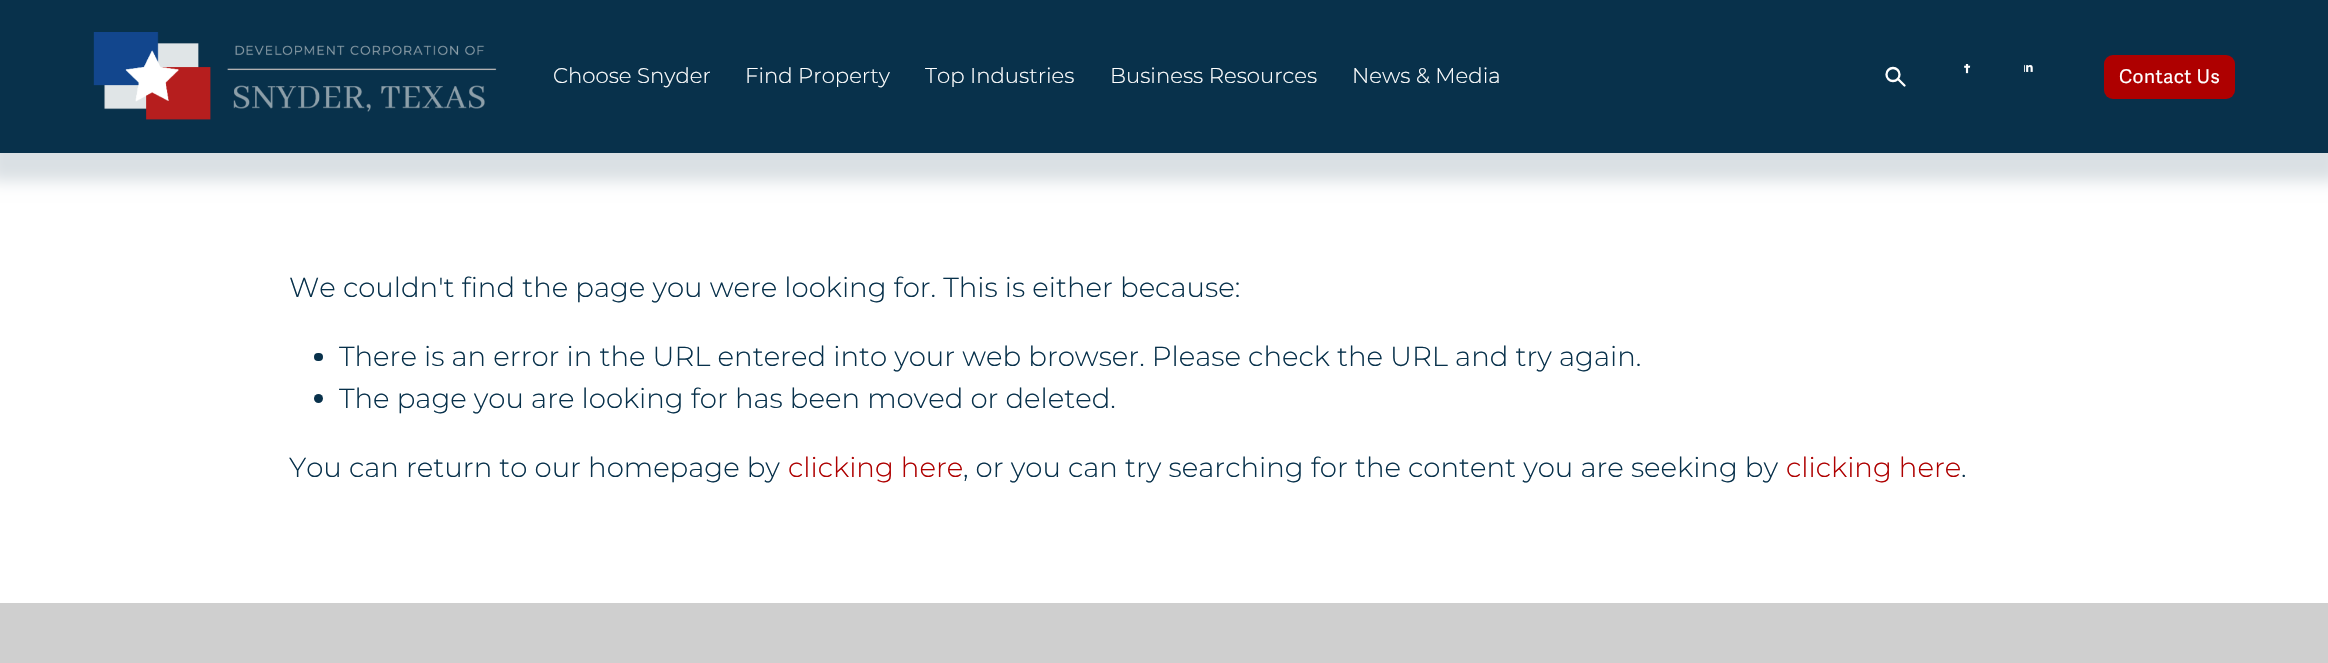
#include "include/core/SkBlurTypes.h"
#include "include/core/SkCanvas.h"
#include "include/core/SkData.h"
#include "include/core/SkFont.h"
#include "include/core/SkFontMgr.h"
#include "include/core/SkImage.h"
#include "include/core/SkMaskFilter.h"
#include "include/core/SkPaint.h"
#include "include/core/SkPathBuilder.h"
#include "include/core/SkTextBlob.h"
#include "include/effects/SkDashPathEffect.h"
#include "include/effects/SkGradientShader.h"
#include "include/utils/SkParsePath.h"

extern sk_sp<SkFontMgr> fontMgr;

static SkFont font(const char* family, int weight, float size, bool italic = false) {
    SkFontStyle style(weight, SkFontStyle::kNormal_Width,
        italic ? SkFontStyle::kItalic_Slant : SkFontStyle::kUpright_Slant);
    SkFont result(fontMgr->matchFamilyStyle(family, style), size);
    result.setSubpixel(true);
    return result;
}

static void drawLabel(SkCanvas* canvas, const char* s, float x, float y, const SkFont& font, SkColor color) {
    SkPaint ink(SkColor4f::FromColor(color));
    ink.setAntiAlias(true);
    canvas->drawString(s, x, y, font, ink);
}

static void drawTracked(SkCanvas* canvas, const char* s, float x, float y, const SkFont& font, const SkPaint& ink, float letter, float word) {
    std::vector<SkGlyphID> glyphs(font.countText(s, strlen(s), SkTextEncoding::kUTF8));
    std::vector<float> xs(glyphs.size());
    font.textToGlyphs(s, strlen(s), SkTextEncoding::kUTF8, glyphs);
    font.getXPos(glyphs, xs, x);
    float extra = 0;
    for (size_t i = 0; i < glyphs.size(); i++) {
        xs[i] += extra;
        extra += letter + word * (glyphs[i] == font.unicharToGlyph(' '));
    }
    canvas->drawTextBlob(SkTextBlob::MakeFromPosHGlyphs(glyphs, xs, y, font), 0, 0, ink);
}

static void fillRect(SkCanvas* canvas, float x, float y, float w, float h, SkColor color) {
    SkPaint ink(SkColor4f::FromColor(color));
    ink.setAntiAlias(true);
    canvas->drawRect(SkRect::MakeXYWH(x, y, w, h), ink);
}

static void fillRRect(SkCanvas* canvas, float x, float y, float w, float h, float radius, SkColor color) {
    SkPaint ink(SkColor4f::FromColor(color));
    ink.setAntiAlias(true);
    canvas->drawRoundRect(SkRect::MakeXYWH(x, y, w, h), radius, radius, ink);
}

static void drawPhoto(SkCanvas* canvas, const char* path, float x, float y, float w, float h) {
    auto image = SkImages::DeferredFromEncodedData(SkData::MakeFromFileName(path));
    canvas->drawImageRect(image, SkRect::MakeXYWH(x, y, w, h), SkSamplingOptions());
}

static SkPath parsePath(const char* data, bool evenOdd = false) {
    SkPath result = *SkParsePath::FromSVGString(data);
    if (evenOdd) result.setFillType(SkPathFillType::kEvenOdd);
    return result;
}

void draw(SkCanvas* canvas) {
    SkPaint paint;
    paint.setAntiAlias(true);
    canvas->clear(0xFFFFFFFF);
    paint.setColor(0xFFDAE0E4);
    paint.setMaskFilter(SkMaskFilter::MakeBlur(kNormal_SkBlurStyle, 7.5f));
    canvas->drawRect(SkRect::MakeXYWH(-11, 6, 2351, 175), paint);
    paint.setMaskFilter(nullptr);
    fillRect(canvas, 0, 0, 2328, 153, 0xFF08314B);
    drawPhoto(canvas, "assets/img1.png", 93, 32, 404, 88);
    SkFont font1 = font("Montserrat", 300, 21.25f);
    drawLabel(canvas, "Choose Snyder", 553, 83, font1, 0xFFFFFFFF);
    drawLabel(canvas, "Find Property", 745, 83, font1, 0xFFFFFFFF);
    drawLabel(canvas, "Top Industries", 925, 83, font1, 0xFFFFFFFF);
    drawLabel(canvas, "Business Resources", 1110, 83, font1, 0xFFFFFFFF);
    drawLabel(canvas, "News & Media", 1352, 83, font1, 0xFFFFFFFF);
    paint.setStroke(true);
    paint.setStrokeWidth(2.3f);
    paint.setStrokeCap(SkPaint::kRound_Cap);
    paint.setStrokeJoin(SkPaint::kRound_Join);
    paint.setColor(0xFFFFFFFF);
    canvas->drawPath(parsePath("M1898 79L1904.5 85.5"), paint);
    paint.setStrokeCap(SkPaint::kButt_Cap);
    paint.setStrokeJoin(SkPaint::kMiter_Join);
    canvas->drawCircle(1893, 74.5f, 6.5f, paint);
    drawPhoto(canvas, "assets/img2.png", 1964, 64, 7, 10);
    drawPhoto(canvas, "assets/img3.png", 2024, 64, 9, 8);
    fillRRect(canvas, 2104, 55, 131, 44, 9, 0xFFAE0000);
    SkFont font2 = font("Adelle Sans", 400, 19);
    paint.setStroke(false);
    drawTracked(canvas, "Contact Us", 2119, 83, font2, paint, 0.4f, 0);
    SkFont font3 = font("Montserrat", 300, 27.6f);
    drawLabel(canvas, "We couldn't find the page you were looking for. This is either because:", 289, 297, font3, 0xFF08314B);
    fillRRect(canvas, 314, 353, 9, 8, 4, 0xFF08314B);
    drawLabel(canvas, "There is an error in the URL entered into your web browser. Please check the URL and try again.", 339, 366, font3, 0xFF08314B);
    paint.setColor(0xFF08314B);
    canvas->drawCircle(318.5f, 398.5f, 4.5f, paint);
    drawLabel(canvas, "The page you are looking for has been moved or deleted.", 339, 408, font3, 0xFF08314B);
    drawLabel(canvas, "You can return to our homepage by", 289, 477, font3, 0xFF08314B);
    drawLabel(canvas, "clicking here", 788, 477, font3, 0xFFAE0000);
    drawLabel(canvas, ", or you can try searching for the content you are seeking by", 963, 477, font3, 0xFF08314B);
    drawLabel(canvas, "clicking here", 1786, 477, font3, 0xFFAE0000);
    drawLabel(canvas, ".", 1961, 477, font3, 0xFF08314B);
    fillRect(canvas, 0, 603, 2328, 60, 0xFFCFCFCF);
}
